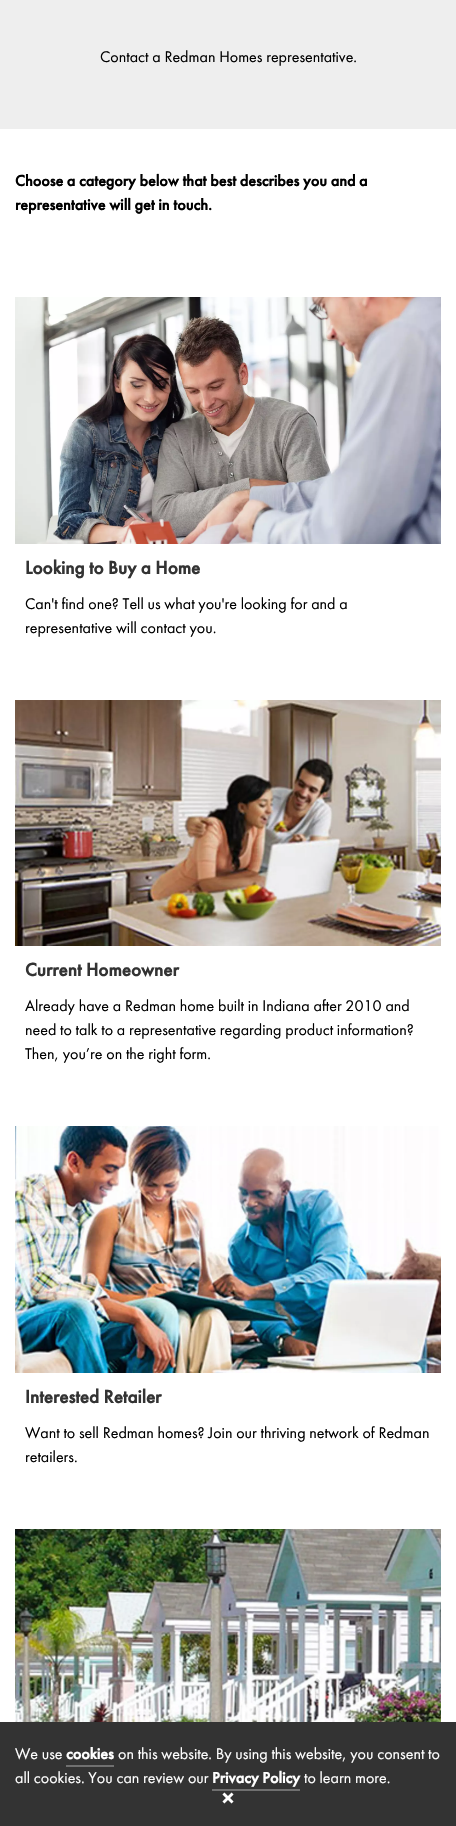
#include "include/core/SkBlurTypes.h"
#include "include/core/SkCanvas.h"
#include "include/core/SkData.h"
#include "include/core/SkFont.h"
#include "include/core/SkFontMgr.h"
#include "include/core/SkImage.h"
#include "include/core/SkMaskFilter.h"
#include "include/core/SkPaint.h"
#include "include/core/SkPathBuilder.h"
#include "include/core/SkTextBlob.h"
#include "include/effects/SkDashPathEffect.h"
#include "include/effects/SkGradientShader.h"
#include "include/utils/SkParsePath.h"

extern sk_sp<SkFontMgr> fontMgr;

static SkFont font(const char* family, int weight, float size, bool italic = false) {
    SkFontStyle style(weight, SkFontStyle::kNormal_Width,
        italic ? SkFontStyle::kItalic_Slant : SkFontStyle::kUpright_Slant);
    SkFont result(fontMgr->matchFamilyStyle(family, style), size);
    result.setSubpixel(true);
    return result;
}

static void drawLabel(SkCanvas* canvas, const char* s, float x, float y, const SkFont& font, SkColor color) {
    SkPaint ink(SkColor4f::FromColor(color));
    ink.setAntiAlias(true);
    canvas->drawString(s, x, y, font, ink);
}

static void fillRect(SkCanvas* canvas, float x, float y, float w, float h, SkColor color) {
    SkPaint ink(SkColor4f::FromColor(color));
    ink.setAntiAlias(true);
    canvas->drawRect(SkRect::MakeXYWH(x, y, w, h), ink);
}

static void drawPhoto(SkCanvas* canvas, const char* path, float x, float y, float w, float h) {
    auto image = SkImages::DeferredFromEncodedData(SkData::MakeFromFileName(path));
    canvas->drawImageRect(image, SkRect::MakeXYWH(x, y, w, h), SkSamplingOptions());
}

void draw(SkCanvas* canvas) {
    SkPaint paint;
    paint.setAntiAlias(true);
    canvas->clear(0xFFFFFFFF);
    fillRect(canvas, 0, 0, 456, 129, 0xFFEEEEEE);
    SkFont font1 = font("Futura PT", 400, 16);
    drawLabel(canvas, "Contact a Redman Homes representative.", 100, 62, font1, 0xFF000000);
    SkFont font2 = font("Futura PT", 700, 16);
    drawLabel(canvas, "Choose a category below that best describes you and a", 15, 186, font2, 0xFF000000);
    drawLabel(canvas, "representative will get in touch.", 15, 210, font2, 0xFF000000);
    drawPhoto(canvas, "assets/img1.png", 15, 297, 426, 247);
    SkFont font3 = font("Futura PT", 700, 19);
    drawLabel(canvas, "Looking to Buy a Home", 25, 574, font3, 0xFF333333);
    drawLabel(canvas, "Can't find one? Tell us what you're looking for and a", 25, 609, font1, 0xFF000000);
    drawLabel(canvas, "representative will contact you.", 25, 633, font1, 0xFF000000);
    drawPhoto(canvas, "assets/img2.png", 15, 700, 426, 246);
    drawLabel(canvas, "Current Homeowner", 25, 976, font3, 0xFF333333);
    drawLabel(canvas, "Already have a Redman home built in Indiana after 2010 and", 25, 1011, font1, 0xFF000000);
    drawLabel(canvas, "need to talk to a representative regarding product information?", 25, 1035, font1, 0xFF000000);
    drawLabel(canvas, "Then, you’re on the right form.", 25, 1059, font1, 0xFF000000);
    drawPhoto(canvas, "assets/img3.png", 15, 1126, 426, 247);
    drawLabel(canvas, "Interested Retailer", 25, 1403, font3, 0xFF333333);
    drawLabel(canvas, "Want to sell Redman homes? Join our thriving network of Redman", 25, 1438, font1, 0xFF000000);
    drawLabel(canvas, "retailers.", 25, 1462, font1, 0xFF000000);
    drawPhoto(canvas, "assets/img4.png", 15, 1529, 426, 193);
    fillRect(canvas, 0, 1722, 456, 104, 0xFF333333);
    drawLabel(canvas, "We use", 15, 1759, font1, 0xFFFFFFFF);
    drawLabel(canvas, "cookies", 66, 1759, font2, 0xFFFFFFFF);
    fillRect(canvas, 66, 1765, 48, 2, 0xFF707070);
    drawLabel(canvas, "on this website. By using this website, you consent to", 118, 1759, font1, 0xFFFFFFFF);
    drawLabel(canvas, "all cookies. You can review our", 15, 1783, font1, 0xFFFFFFFF);
    drawLabel(canvas, "Privacy Policy", 212, 1783, font2, 0xFFFFFFFF);
    fillRect(canvas, 212, 1789, 88, 2, 0xFF707070);
    drawLabel(canvas, "to learn more.", 304, 1783, font1, 0xFFFFFFFF);
    drawPhoto(canvas, "assets/img5.png", 222, 1792, 12, 12);
}
